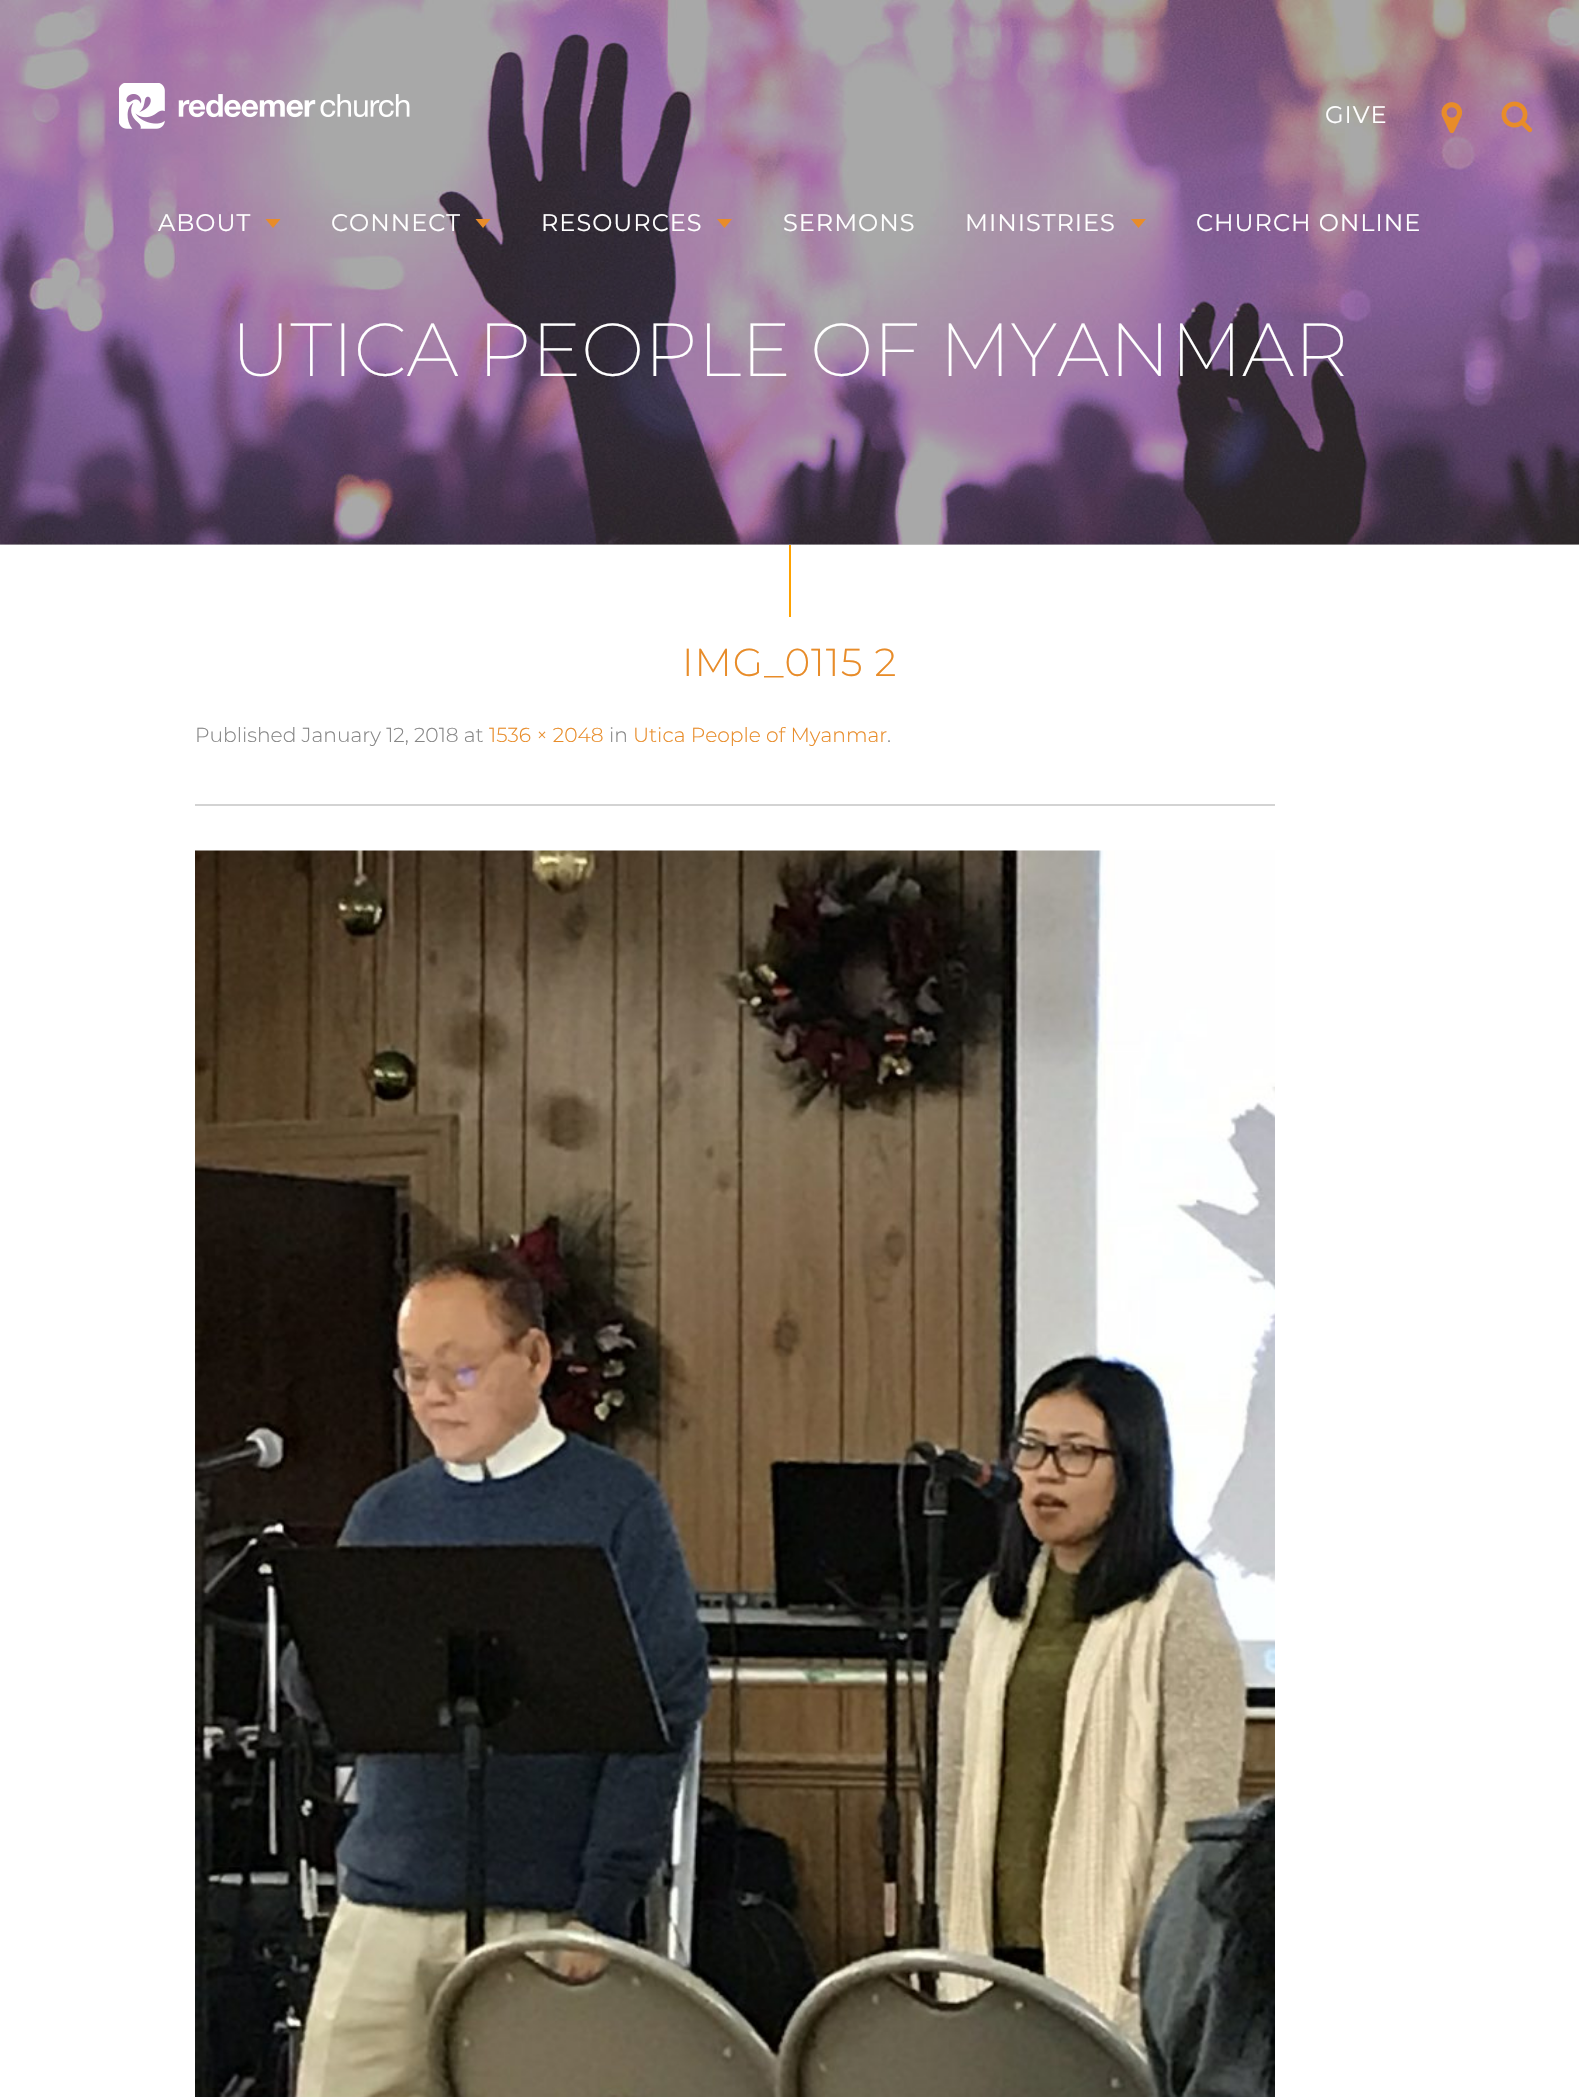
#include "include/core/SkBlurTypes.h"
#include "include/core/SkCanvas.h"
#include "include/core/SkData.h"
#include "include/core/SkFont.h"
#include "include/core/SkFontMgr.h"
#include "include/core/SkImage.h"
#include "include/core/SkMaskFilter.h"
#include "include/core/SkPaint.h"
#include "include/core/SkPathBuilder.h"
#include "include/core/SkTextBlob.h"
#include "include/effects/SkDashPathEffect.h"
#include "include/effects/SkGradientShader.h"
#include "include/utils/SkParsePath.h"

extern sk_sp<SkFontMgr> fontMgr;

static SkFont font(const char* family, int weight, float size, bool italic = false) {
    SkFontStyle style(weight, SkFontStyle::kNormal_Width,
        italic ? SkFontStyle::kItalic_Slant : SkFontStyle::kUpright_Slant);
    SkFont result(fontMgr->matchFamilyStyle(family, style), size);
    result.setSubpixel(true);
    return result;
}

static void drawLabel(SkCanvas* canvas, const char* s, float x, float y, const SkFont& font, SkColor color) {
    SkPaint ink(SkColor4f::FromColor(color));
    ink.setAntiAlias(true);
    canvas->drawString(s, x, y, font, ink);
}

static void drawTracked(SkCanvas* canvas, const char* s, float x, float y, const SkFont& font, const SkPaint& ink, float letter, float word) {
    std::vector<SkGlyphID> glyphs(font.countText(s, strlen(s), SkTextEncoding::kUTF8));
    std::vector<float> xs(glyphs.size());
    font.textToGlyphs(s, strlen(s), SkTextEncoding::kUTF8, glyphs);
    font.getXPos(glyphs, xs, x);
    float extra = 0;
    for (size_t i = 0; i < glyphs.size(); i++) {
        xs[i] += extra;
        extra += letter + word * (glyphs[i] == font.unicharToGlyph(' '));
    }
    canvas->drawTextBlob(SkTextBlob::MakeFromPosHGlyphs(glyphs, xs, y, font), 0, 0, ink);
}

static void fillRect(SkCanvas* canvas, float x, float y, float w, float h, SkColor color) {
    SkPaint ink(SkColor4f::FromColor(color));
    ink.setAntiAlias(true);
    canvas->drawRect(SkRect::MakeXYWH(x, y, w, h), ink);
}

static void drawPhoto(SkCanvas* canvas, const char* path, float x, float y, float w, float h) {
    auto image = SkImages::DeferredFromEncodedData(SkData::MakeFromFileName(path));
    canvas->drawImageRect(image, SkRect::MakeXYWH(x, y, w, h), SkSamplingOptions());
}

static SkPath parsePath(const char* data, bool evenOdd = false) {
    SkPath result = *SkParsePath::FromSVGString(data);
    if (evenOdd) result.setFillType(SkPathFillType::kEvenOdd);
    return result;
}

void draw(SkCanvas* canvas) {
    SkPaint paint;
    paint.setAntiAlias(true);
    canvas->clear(0xFFFFFFFF);
    fillRect(canvas, 0, 544, 1579, 1, 0xFFD9D9D9);
    drawPhoto(canvas, "assets/img4.png", 0, 0, 1579, 545);
    drawPhoto(canvas, "assets/img1.png", 119, 83, 291, 46);
    SkFont font1 = font("Montserrat", 400, 24);
    paint.setColor(0xFFFFFFFF);
    drawTracked(canvas, "GIVE", 1325, 123, font1, paint, 1, 0);
    drawPhoto(canvas, "assets/img2.png", 1441, 102, 22, 31);
    drawPhoto(canvas, "assets/img3.png", 1501, 101, 32, 32);
    drawTracked(canvas, "ABOUT", 158, 231, font1, paint, 1, 0);
    paint.setColor(0xFFE88C29);
    canvas->drawPath(parsePath("M265.5 219H280.5L273 228Z"), paint);
    paint.setColor(0xFFFFFFFF);
    drawTracked(canvas, "CONNECT", 331, 231, font1, paint, 1, 0);
    paint.setColor(0xFFE88C29);
    canvas->drawPath(parsePath("M475.5 219H490.5L483 228Z"), paint);
    paint.setColor(0xFFFFFFFF);
    drawTracked(canvas, "RESOURCES", 541, 231, font1, paint, 1, 0);
    paint.setColor(0xFFE88C29);
    canvas->drawPath(parsePath("M717 219H732L724.5 228Z"), paint);
    paint.setColor(0xFFFFFFFF);
    drawTracked(canvas, "SERMONS", 783, 231, font1, paint, 1, 0);
    drawTracked(canvas, "MINISTRIES", 965, 231, font1, paint, 1, 0);
    paint.setColor(0xFFE88C29);
    canvas->drawPath(parsePath("M1131 219H1146L1138.5 228Z"), paint);
    paint.setColor(0xFFFFFFFF);
    drawTracked(canvas, "CHURCH ONLINE", 1196, 231, font1, paint, 1, 0);
    SkFont font2 = font("Montserrat", 200, 75);
    drawLabel(canvas, "UTICA PEOPLE OF MYANMAR", 231, 376, font2, 0xFFFFFFFF);
    fillRect(canvas, 789, 545, 2, 72, 0xFFFFA200);
    SkFont font3 = font("Montserrat", 300, 39);
    paint.setColor(0xFFE88C29);
    drawTracked(canvas, "IMG_0115 2", 682, 676, font3, paint, 1, 0);
    SkFont font4 = font("Montserrat", 300, 20.25f);
    drawLabel(canvas, "Published January 12, 2018 at", 195, 742, font4, 0xFF868686);
    drawLabel(canvas, "1536 × 2048", 489, 742, font4, 0xFFE88C29);
    drawLabel(canvas, "in", 609, 742, font4, 0xFF868686);
    drawLabel(canvas, "Utica People of Myanmar", 633, 742, font4, 0xFFE88C29);
    drawLabel(canvas, ".", 887, 742, font4, 0xFF868686);
    fillRect(canvas, 195, 804, 1080, 2, 0xFFD3D3D3);
    drawPhoto(canvas, "assets/img5.png", 195, 850, 1080, 1247);
}
